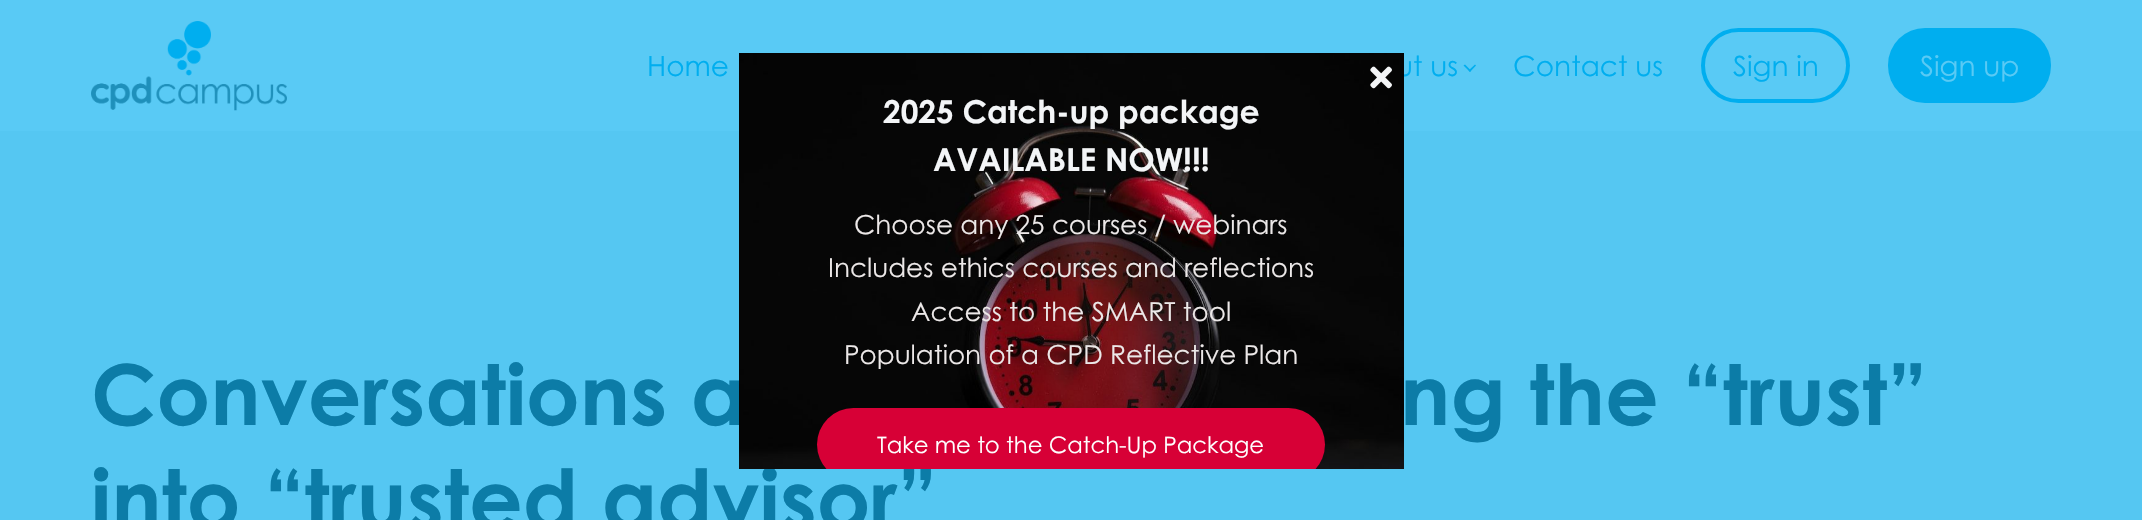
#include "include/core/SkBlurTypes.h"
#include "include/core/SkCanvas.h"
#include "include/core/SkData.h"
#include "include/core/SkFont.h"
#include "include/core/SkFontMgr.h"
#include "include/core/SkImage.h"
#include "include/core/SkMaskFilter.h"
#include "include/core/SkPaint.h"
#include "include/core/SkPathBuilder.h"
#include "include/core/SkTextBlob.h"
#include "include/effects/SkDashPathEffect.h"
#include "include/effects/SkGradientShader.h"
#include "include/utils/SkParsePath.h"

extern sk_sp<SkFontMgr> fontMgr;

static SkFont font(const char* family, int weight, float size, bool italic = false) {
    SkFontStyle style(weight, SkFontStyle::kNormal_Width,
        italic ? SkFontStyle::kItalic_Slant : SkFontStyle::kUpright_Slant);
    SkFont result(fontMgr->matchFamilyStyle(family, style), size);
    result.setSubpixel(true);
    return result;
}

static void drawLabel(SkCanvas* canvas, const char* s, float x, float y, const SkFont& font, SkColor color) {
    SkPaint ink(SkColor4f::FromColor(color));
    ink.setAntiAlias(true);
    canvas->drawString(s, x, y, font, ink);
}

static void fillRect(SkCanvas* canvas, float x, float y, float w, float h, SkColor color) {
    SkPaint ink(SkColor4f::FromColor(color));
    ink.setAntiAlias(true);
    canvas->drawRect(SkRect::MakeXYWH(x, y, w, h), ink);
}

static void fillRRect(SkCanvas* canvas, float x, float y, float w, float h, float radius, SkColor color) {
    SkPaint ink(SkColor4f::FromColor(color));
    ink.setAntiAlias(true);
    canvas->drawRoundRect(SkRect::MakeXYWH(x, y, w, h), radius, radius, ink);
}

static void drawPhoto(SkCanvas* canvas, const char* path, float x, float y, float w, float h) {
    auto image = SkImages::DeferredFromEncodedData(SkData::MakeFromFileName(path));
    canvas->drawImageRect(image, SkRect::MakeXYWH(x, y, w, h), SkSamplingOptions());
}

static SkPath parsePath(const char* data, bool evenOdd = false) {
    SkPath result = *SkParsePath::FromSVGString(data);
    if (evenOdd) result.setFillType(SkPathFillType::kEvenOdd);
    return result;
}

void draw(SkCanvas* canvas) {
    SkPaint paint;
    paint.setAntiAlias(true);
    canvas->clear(0xFF59CAF5);
    drawPhoto(canvas, "assets/img1.png", 91, 21, 196, 90);
    SkFont font1 = font("Century Gothic", 400, 28);
    drawLabel(canvas, "Home", 647, 76, font1, 0xFF00AEEF);
    drawLabel(canvas, "ut us", 1396, 76, font1, 0xFF00AEEF);
    paint.setColor(0xFF00AEEF);
    canvas->drawPath(parsePath("M1476 65.5L1470 72L1468.5 70.5L1475 64.5Z"), paint);
    canvas->drawPath(parsePath("M1471 70.5L1470 72L1463.5 65.5L1465 64.5Z"), paint);
    drawLabel(canvas, "Contact us", 1513, 76, font1, 0xFF00AEEF);
    paint.setStroke(true);
    paint.setStrokeWidth(4);
    canvas->drawRoundRect(SkRect::MakeXYWH(1703, 30, 145, 71), 35.5f, 35.5f, paint);
    drawLabel(canvas, "Sign in", 1733, 76, font1, 0xFF00AEEF);
    fillRRect(canvas, 1888, 28, 163, 75, 37, 0xFF00AEEF);
    drawLabel(canvas, "Sign up", 1920, 76, font1, 0xFF59CAF5);
    fillRect(canvas, 0, 131, 2142, 389, 0xFF55C7F2);
    SkFont font2 = font("Century Gothic", 700, 84);
    drawLabel(canvas, "Conversations a", 91, 425, font2, 0xFF0C7CA7);
    drawLabel(canvas, "into “trusted advisor”", 91, 530, font2, 0xFF0C7CA7);
    drawPhoto(canvas, "assets/img3.png", 739, 53, 665, 416);
    drawPhoto(canvas, "assets/img2.png", 1370, 66, 22, 23);
    SkFont font3 = font("Century Gothic", 700, 31.5f);
    drawLabel(canvas, "2025 Catch-up package", 883, 123, font3, 0xFFF3F5F7);
    drawLabel(canvas, "AVAILABLE NOW!!!", 933, 171, font3, 0xFFF3F5F7);
    SkFont font4 = font("Century Gothic", 400, 26.25f);
    drawLabel(canvas, "Choose any 25 courses / webinars", 854, 234, font4, 0xFFECE8E8);
    drawLabel(canvas, "Includes ethics courses and reflections", 828, 277, font4, 0xFFECE8E8);
    drawLabel(canvas, "Access to the SMART tool", 911, 321, font4, 0xFFECE8E8);
    drawLabel(canvas, "Population of a CPD Reflective Plan", 844, 364, font4, 0xFFECE8E8);
    canvas->save();
    canvas->clipRect(SkRect::MakeXYWH(739, 53, 665, 416));
    fillRRect(canvas, 817, 408, 508, 73, 36.5f, 0xFFD70036);
    canvas->restore();
    SkFont font5 = font("Century Gothic", 400, 22.75f);
    drawLabel(canvas, "Take me to the Catch-Up Package", 877, 453, font5, 0xFFFFFFFF);
    drawLabel(canvas, "ng the “trust”", 1400, 425, font2, 0xFF0C7CA7);
}
